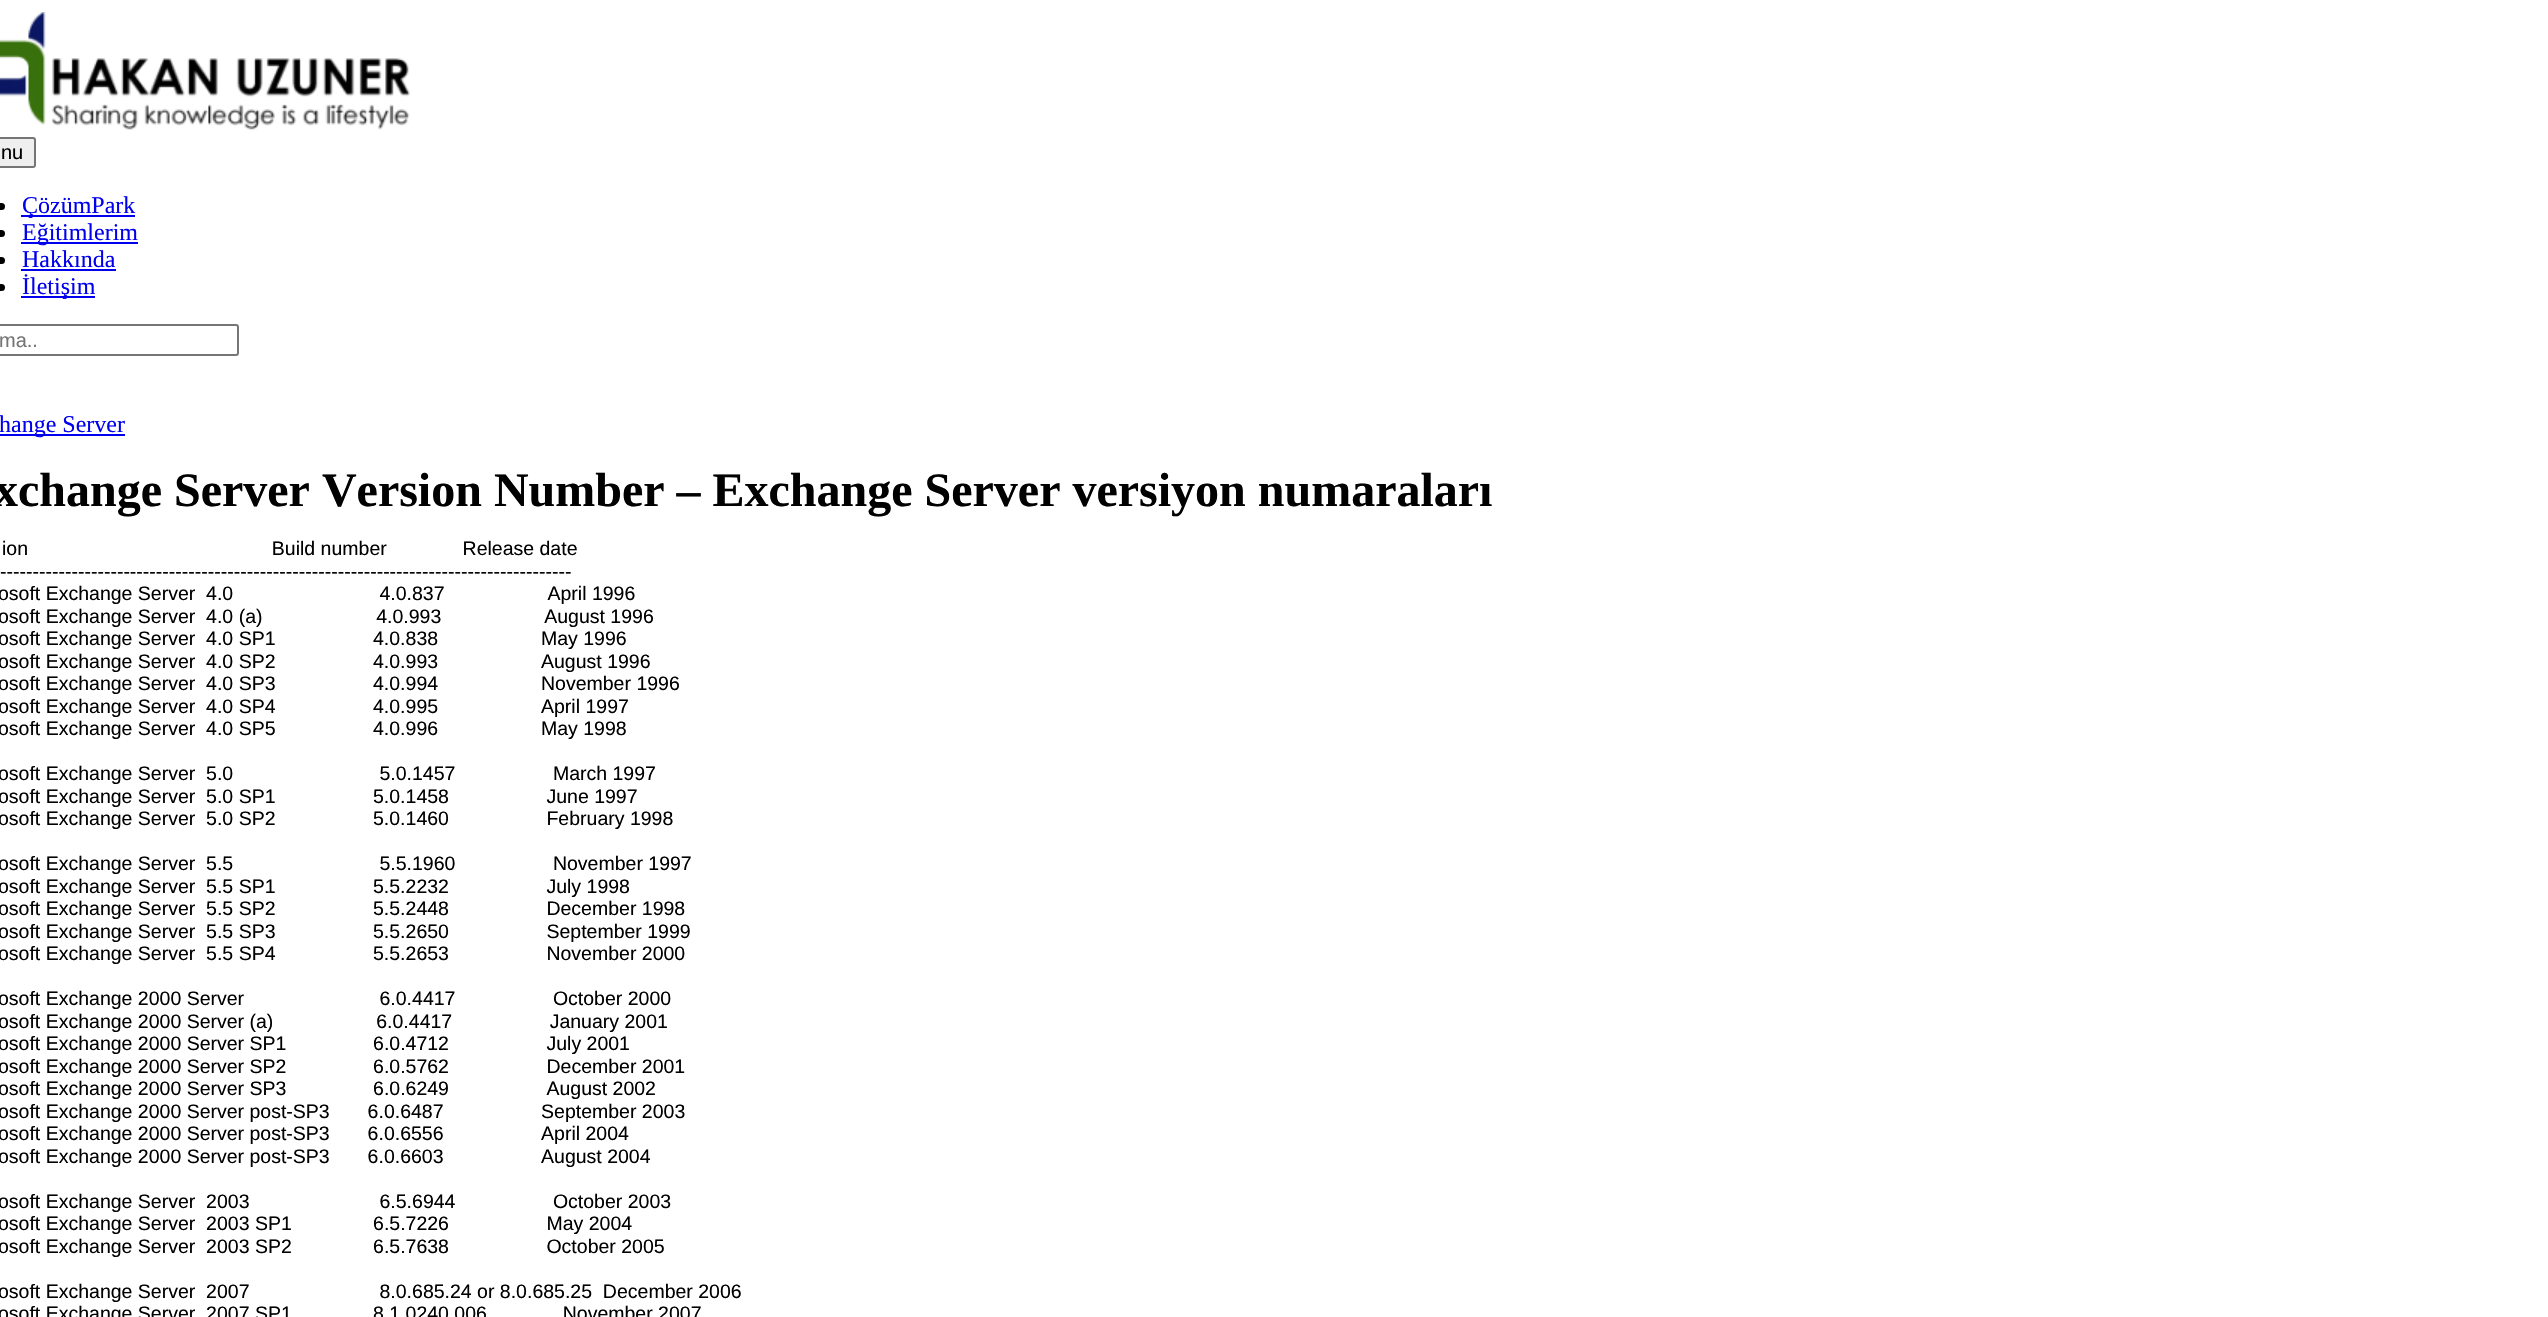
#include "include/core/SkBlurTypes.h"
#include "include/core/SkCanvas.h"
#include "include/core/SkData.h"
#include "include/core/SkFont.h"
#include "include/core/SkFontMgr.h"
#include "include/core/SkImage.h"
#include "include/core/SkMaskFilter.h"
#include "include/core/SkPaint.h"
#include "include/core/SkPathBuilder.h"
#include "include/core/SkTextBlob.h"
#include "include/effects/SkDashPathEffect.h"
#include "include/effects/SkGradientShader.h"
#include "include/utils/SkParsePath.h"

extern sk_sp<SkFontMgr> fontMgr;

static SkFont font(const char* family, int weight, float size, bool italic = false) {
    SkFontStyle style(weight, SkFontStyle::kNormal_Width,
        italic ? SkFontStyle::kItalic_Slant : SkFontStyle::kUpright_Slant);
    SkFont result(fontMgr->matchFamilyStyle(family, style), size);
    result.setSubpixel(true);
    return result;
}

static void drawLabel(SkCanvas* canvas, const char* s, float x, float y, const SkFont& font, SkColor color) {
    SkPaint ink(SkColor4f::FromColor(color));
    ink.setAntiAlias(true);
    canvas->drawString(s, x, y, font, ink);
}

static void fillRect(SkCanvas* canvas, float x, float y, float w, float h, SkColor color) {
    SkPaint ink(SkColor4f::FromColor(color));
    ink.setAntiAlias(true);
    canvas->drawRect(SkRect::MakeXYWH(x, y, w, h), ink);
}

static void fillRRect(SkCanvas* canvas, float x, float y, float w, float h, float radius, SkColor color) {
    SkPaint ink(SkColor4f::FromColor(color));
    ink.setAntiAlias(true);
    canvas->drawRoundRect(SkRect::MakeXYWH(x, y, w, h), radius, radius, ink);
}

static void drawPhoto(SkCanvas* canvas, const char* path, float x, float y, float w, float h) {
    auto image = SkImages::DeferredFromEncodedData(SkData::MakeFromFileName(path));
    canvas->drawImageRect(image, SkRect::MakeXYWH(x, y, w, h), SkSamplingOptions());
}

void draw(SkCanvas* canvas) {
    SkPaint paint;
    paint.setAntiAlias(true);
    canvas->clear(0xFFFFFFFF);
    drawPhoto(canvas, "assets/img1.png", 0, 12, 410, 118);
    paint.setColor(0xFFEFEFEF);
    canvas->drawRoundRect(SkRect::MakeXYWH(-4, 138, 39, 29), 2, 2, paint);
    paint.setStroke(true);
    paint.setStrokeWidth(2);
    paint.setColor(0xFF767676);
    canvas->drawRoundRect(SkRect::MakeXYWH(-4, 138, 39, 29), 2, 2, paint);
    SkFont font1 = font("Liberation Sans", 400, 20);
    drawLabel(canvas, "nu", 1, 159, font1, 0xFF000000);
    fillRRect(canvas, -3, 203, 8, 7, 3.5f, 0xFF000000);
    fillRect(canvas, 21, 215, 114, 2, 0xFF0000EE);
    SkFont font2 = font("Liberation Serif", 400, 24);
    drawLabel(canvas, "ÇözümPark", 22, 213, font2, 0xFF0000EE);
    fillRRect(canvas, -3, 230, 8, 7, 3.5f, 0xFF000000);
    fillRect(canvas, 21, 242, 117, 2, 0xFF0000EE);
    drawLabel(canvas, "Eğitimlerim", 22, 240, font2, 0xFF0000EE);
    fillRRect(canvas, -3, 257, 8, 7, 3.5f, 0xFF000000);
    drawLabel(canvas, "Hakkında", 22, 267, font2, 0xFF0000EE);
    fillRect(canvas, 21, 269, 95, 2, 0xFF0000EE);
    fillRRect(canvas, -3, 284, 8, 7, 3.5f, 0xFF000000);
    fillRect(canvas, 21, 296, 74, 2, 0xFF0000EE);
    drawLabel(canvas, "İletişim", 22, 294, font2, 0xFF0000EE);
    canvas->drawRoundRect(SkRect::MakeXYWH(-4, 325, 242, 30), 2, 2, paint);
    drawLabel(canvas, "ma..", -1, 347, font1, 0xFF757575);
    fillRect(canvas, 0, 434, 125, 2, 0xFF0000EE);
    drawLabel(canvas, "hange Server", -1, 432, font2, 0xFF0000EE);
    SkFont font3 = font("Liberation Serif", 700, 48);
    drawLabel(canvas, "xchange Server Version Number – Exchange Server versiyon numaraları", -6, 506, font3, 0xFF000000);
    SkFont font4 = font("Liberation Sans", 400, 19.5f);
    drawLabel(canvas, "ion                                             Build number              Release date", 2, 555, font4, 0xFF000000);
    drawLabel(canvas, "----------------------------------------------------------------------------------------", 0, 578, font4, 0xFF000000);
    drawLabel(canvas, "osoft Exchange Server  4.0                           4.0.837                   April 1996", -2, 600, font4, 0xFF000000);
    drawLabel(canvas, "osoft Exchange Server  4.0 (a)                     4.0.993                   August 1996", -2, 623, font4, 0xFF000000);
    drawLabel(canvas, "osoft Exchange Server  4.0 SP1                  4.0.838                   May 1996", -2, 645, font4, 0xFF000000);
    drawLabel(canvas, "osoft Exchange Server  4.0 SP2                  4.0.993                   August 1996", -2, 668, font4, 0xFF000000);
    drawLabel(canvas, "osoft Exchange Server  4.0 SP3                  4.0.994                   November 1996", -2, 690, font4, 0xFF000000);
    drawLabel(canvas, "osoft Exchange Server  4.0 SP4                  4.0.995                   April 1997", -2, 713, font4, 0xFF000000);
    drawLabel(canvas, "osoft Exchange Server  4.0 SP5                  4.0.996                   May 1998", -2, 735, font4, 0xFF000000);
    drawLabel(canvas, "osoft Exchange Server  5.0                           5.0.1457                  March 1997", -2, 780, font4, 0xFF000000);
    drawLabel(canvas, "osoft Exchange Server  5.0 SP1                  5.0.1458                  June 1997", -2, 803, font4, 0xFF000000);
    drawLabel(canvas, "osoft Exchange Server  5.0 SP2                  5.0.1460                  February 1998", -2, 825, font4, 0xFF000000);
    drawLabel(canvas, "osoft Exchange Server  5.5                           5.5.1960                  November 1997", -2, 870, font4, 0xFF000000);
    drawLabel(canvas, "osoft Exchange Server  5.5 SP1                  5.5.2232                  July 1998", -2, 893, font4, 0xFF000000);
    drawLabel(canvas, "osoft Exchange Server  5.5 SP2                  5.5.2448                  December 1998", -2, 915, font4, 0xFF000000);
    drawLabel(canvas, "osoft Exchange Server  5.5 SP3                  5.5.2650                  September 1999", -2, 938, font4, 0xFF000000);
    drawLabel(canvas, "osoft Exchange Server  5.5 SP4                  5.5.2653                  November 2000", -2, 960, font4, 0xFF000000);
    drawLabel(canvas, "osoft Exchange 2000 Server                         6.0.4417                  October 2000", -2, 1005, font4, 0xFF000000);
    drawLabel(canvas, "osoft Exchange 2000 Server (a)                   6.0.4417                  January 2001", -2, 1028, font4, 0xFF000000);
    drawLabel(canvas, "osoft Exchange 2000 Server SP1                6.0.4712                  July 2001", -2, 1050, font4, 0xFF000000);
    drawLabel(canvas, "osoft Exchange 2000 Server SP2                6.0.5762                  December 2001", -2, 1073, font4, 0xFF000000);
    drawLabel(canvas, "osoft Exchange 2000 Server SP3                6.0.6249                  August 2002", -2, 1095, font4, 0xFF000000);
    drawLabel(canvas, "osoft Exchange 2000 Server post-SP3       6.0.6487                  September 2003", -2, 1118, font4, 0xFF000000);
    drawLabel(canvas, "osoft Exchange 2000 Server post-SP3       6.0.6556                  April 2004", -2, 1140, font4, 0xFF000000);
    drawLabel(canvas, "osoft Exchange 2000 Server post-SP3       6.0.6603                  August 2004", -2, 1163, font4, 0xFF000000);
    drawLabel(canvas, "osoft Exchange Server  2003                        6.5.6944                  October 2003", -2, 1208, font4, 0xFF000000);
    drawLabel(canvas, "osoft Exchange Server  2003 SP1               6.5.7226                  May 2004", -2, 1230, font4, 0xFF000000);
    drawLabel(canvas, "osoft Exchange Server  2003 SP2               6.5.7638                  October 2005", -2, 1253, font4, 0xFF000000);
    drawLabel(canvas, "osoft Exchange Server  2007                        8.0.685.24 or 8.0.685.25  December 2006", -2, 1298, font4, 0xFF000000);
    drawLabel(canvas, "osoft Exchange Server  2007 SP1               8.1.0240.006              November 2007", -2, 1320, font4, 0xFF000000);
}
